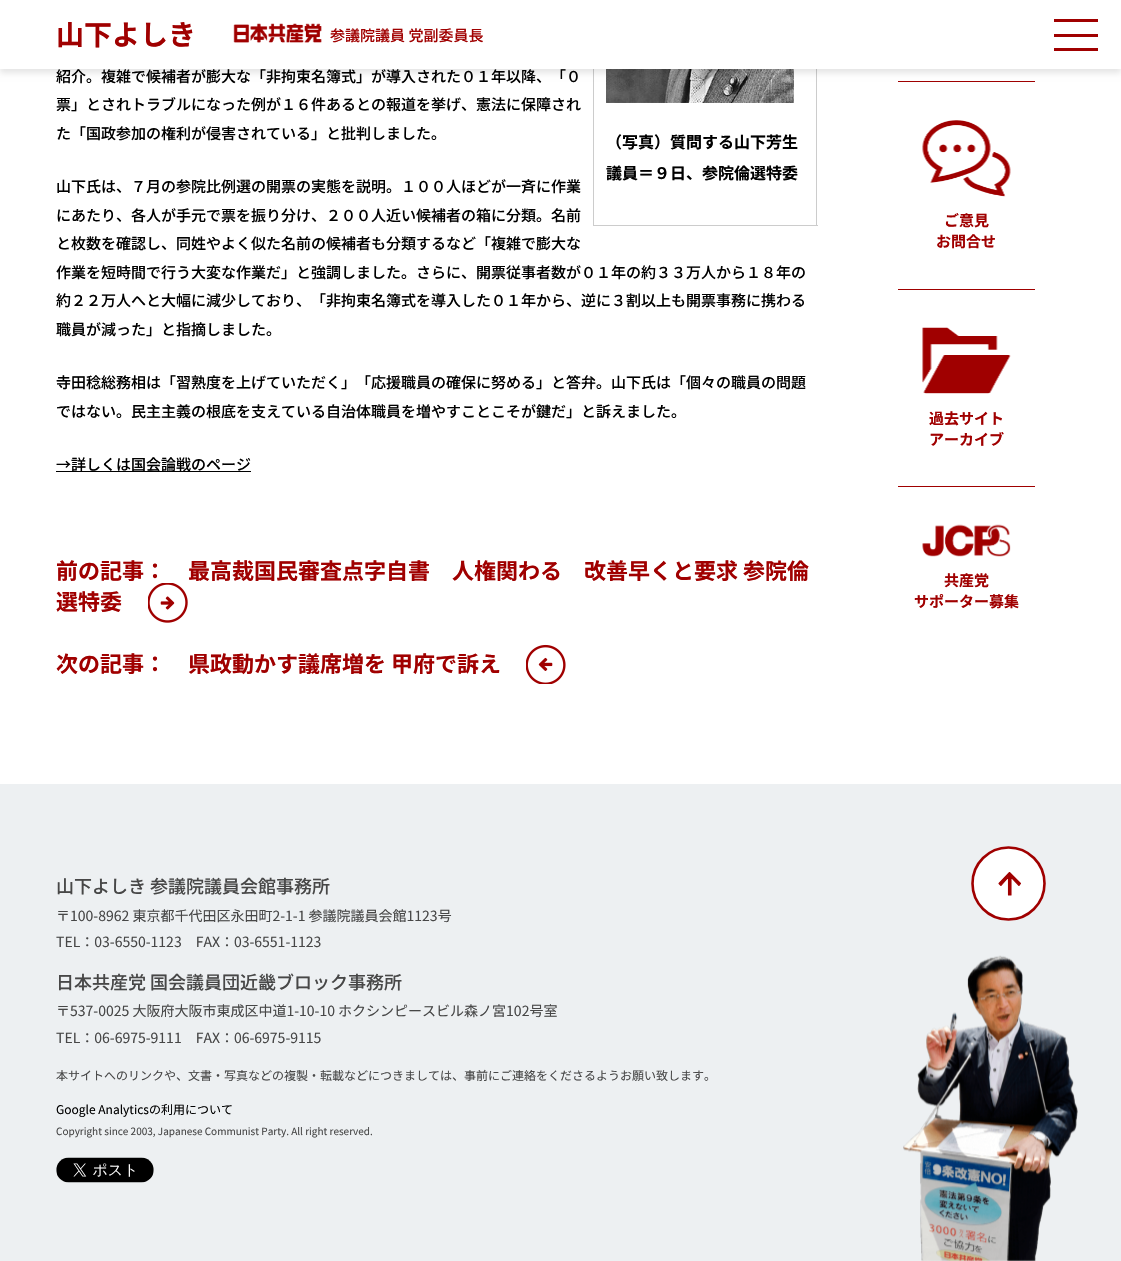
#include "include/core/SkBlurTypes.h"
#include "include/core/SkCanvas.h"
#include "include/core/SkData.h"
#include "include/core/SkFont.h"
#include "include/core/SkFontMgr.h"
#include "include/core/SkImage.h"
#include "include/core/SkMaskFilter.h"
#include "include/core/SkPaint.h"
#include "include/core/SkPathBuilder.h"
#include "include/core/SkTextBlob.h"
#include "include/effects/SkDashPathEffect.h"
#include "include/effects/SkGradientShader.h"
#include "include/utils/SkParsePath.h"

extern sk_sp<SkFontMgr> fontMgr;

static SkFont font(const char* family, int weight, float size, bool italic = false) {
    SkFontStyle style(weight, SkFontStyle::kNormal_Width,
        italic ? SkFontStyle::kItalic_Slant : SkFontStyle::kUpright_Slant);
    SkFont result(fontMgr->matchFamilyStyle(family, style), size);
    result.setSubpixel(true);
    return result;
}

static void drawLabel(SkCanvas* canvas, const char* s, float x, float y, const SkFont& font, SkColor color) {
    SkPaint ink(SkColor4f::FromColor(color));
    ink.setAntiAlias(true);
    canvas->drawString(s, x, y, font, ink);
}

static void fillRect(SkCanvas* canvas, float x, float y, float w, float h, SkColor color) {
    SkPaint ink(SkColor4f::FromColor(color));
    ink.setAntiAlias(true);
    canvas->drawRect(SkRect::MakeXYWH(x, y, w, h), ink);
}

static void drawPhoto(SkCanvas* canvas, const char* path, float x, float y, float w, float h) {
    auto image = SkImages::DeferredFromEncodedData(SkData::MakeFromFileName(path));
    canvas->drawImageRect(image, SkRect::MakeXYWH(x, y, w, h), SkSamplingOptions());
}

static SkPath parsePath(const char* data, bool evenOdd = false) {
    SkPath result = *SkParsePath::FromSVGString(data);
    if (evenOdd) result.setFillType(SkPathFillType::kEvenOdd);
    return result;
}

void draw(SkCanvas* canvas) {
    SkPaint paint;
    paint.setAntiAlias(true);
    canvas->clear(0xFFFFFFFF);
    fillRect(canvas, 816, 69, 1, 157, 0xFFCCCCCC);
    fillRect(canvas, 593, 225, 225, 1, 0xFFCCCCCC);
    fillRect(canvas, 593, 69, 1, 157, 0xFFCCCCCC);
    drawPhoto(canvas, "assets/img2.png", 606, 69, 188, 34);
    fillRect(canvas, 898, 81, 137, 1, 0xFFA00000);
    paint.setColor(0x1A000000);
    paint.setMaskFilter(SkMaskFilter::MakeBlur(kNormal_SkBlurStyle, 3));
    canvas->drawRect(SkRect::MakeXYWH(0, 4, 1121, 69), paint);
    paint.setMaskFilter(nullptr);
    fillRect(canvas, 0, 0, 1121, 69, 0xFFFFFFFF);
    SkFont font1 = font("Noto Sans JP", 700, 28);
    drawLabel(canvas, "山下よしき", 56, 45, font1, 0xFFA00000);
    drawPhoto(canvas, "assets/img1.png", 233, 23, 89, 20);
    SkFont font2 = font("Noto Sans JP", 500, 15);
    drawLabel(canvas, "参議院議員 党副委員長", 330, 41, font2, 0xFFA00000);
    fillRect(canvas, 1054, 19, 44, 3, 0xFFA00000);
    fillRect(canvas, 1054, 34, 44, 3, 0xFFA00000);
    fillRect(canvas, 1054, 48, 44, 3, 0xFFA00000);
    drawLabel(canvas, "紹介。複雑で候補者が膨大な「非拘束名簿式」が導入された０１年以降、「０", 56, 82, font2, 0xFF000000);
    drawLabel(canvas, "票」とされトラブルになった例が１６件あるとの報道を挙げ、憲法に保障され", 56, 110, font2, 0xFF000000);
    drawLabel(canvas, "た「国政参加の権利が侵害されている」と批判しました。", 56, 139, font2, 0xFF000000);
    SkFont font3 = font("Noto Sans JP", 700, 16);
    drawLabel(canvas, "（写真）質問する山下芳生", 606, 148, font3, 0xFF000000);
    drawLabel(canvas, "議員＝９日、参院倫選特委", 606, 179, font3, 0xFF000000);
    drawLabel(canvas, "山下氏は、７月の参院比例選の開票の実態を説明。１００人ほどが一斉に作業", 56, 192, font2, 0xFF000000);
    drawLabel(canvas, "にあたり、各人が手元で票を振り分け、２００人近い候補者の箱に分類。名前", 56, 221, font2, 0xFF000000);
    drawLabel(canvas, "と枚数を確認し、同姓やよく似た名前の候補者も分類するなど「複雑で膨大な", 56, 249, font2, 0xFF000000);
    drawLabel(canvas, "作業を短時間で行う大変な作業だ」と強調しました。さらに、開票従事者数が０１年の約３３万人から１８年の", 56, 278, font2, 0xFF000000);
    drawLabel(canvas, "約２２万人へと大幅に減少しており、「非拘束名簿式を導入した０１年から、逆に３割以上も開票事務に携わる", 56, 306, font2, 0xFF000000);
    drawLabel(canvas, "職員が減った」と指摘しました。", 56, 335, font2, 0xFF000000);
    drawLabel(canvas, "寺田稔総務相は「習熟度を上げていただく」「応援職員の確保に努める」と答弁。山下氏は「個々の職員の問題", 56, 388, font2, 0xFF000000);
    drawLabel(canvas, "ではない。民主主義の根底を支えている自治体職員を増やすことこそが鍵だ」と訴えました。", 56, 417, font2, 0xFF000000);
    fillRect(canvas, 56, 471, 195, 1, 0xFF000000);
    drawLabel(canvas, "→詳しくは国会論戦のページ", 56, 470, font2, 0xFF000000);
    SkFont font4 = font("Noto Sans JP", 700, 22);
    drawLabel(canvas, "前の記事：　最高裁国民審査点字自書　人権関わる　改善早くと要求 参院倫", 56, 579, font4, 0xFFA00000);
    drawLabel(canvas, "選特委", 56, 610, font4, 0xFFA00000);
    drawPhoto(canvas, "assets/img3.png", 148, 583, 40, 40);
    drawLabel(canvas, "次の記事：　県政動かす議席増を 甲府で訴え", 56, 672, font4, 0xFFA00000);
    drawPhoto(canvas, "assets/img4.png", 526, 644, 40, 40);
    drawPhoto(canvas, "assets/img5.png", 922, 120, 89, 77);
    SkFont font5 = font("Noto Sans JP", 700, 15);
    drawLabel(canvas, "ご意見", 944, 226, font5, 0xFFA00000);
    drawLabel(canvas, "お問合せ", 936, 247, font5, 0xFFA00000);
    fillRect(canvas, 898, 289, 137, 1, 0xFFA00000);
    drawPhoto(canvas, "assets/img6.png", 922, 327, 89, 67);
    drawLabel(canvas, "過去サイト", 929, 424, font5, 0xFFA00000);
    drawLabel(canvas, "アーカイブ", 929, 445, font5, 0xFFA00000);
    fillRect(canvas, 898, 486, 137, 1, 0xFFA00000);
    drawPhoto(canvas, "assets/img7.png", 922, 524, 89, 33);
    drawLabel(canvas, "共産党", 944, 586, font5, 0xFFA00000);
    drawLabel(canvas, "サポーター募集", 914, 607, font5, 0xFFA00000);
    fillRect(canvas, 0, 784, 1121, 477, 0xFFEDF0F2);
    SkFont font6 = font("Noto Sans JP", 500, 18);
    drawLabel(canvas, "山下よしき 参議院議員会館事務所", 56, 893, font6, 0xFF474747);
    SkFont font7 = font("Noto Sans JP", 400, 14);
    drawLabel(canvas, "〒100-8962 東京都千代田区永田町2-1-1 参議院議員会館1123号", 56, 921, font7, 0xFF474747);
    drawLabel(canvas, "TEL：03-6550-1123　FAX：03-6551-1123", 56, 947, font7, 0xFF474747);
    drawLabel(canvas, "日本共産党 国会議員団近畿ブロック事務所", 56, 989, font6, 0xFF474747);
    drawLabel(canvas, "〒537-0025 大阪府大阪市東成区中道1-10-10 ホクシンピースビル森ノ宮102号室", 56, 1016, font7, 0xFF474747);
    drawLabel(canvas, "TEL：06-6975-9111　FAX：06-6975-9115", 56, 1043, font7, 0xFF474747);
    SkFont font8 = font("Noto Sans JP", 400, 12);
    drawLabel(canvas, "本サイトへのリンクや、文書・写真などの複製・転載などにつきましては、事前にご連絡をくださるようお願い致します。", 56, 1080, font8, 0xFF474747);
    drawLabel(canvas, "Google Analyticsの利用について", 56, 1114, font8, 0xFF000000);
    SkFont font9 = font("Noto Sans JP", 400, 10);
    drawLabel(canvas, "Copyright since 2003, Japanese Communist Party. All right reserved.", 56, 1135, font9, 0xFF474747);
    drawPhoto(canvas, "assets/img8.png", 56, 1157, 98, 26);
    paint.setColor(0xFFFFFFFF);
    canvas->drawCircle(1008.5f, 883.5f, 36, paint);
    paint.setStroke(true);
    paint.setStrokeWidth(2.6f);
    paint.setColor(0xFFA00000);
    canvas->drawCircle(1008.5f, 883.5f, 36, paint);
    paint.setStroke(false);
    canvas->drawPath(parsePath("M1019 885.5L1011 877V895H1008.5V877L1001 885.5L999 883.5L1009.5 872.5L1020.5 883.5Z"), paint);
    paint.setStroke(true);
    paint.setStrokeWidth(1.1f);
    paint.setStrokeCap(SkPaint::kRound_Cap);
    paint.setStrokeJoin(SkPaint::kRound_Join);
    canvas->drawPath(parsePath("M1019 885.5L1011 877V895H1008.5V877L1001 885.5L999 883.5L1009.5 872.5L1020.5 883.5Z"), paint);
    drawPhoto(canvas, "assets/img9.png", 903, 955, 175, 306);
}
